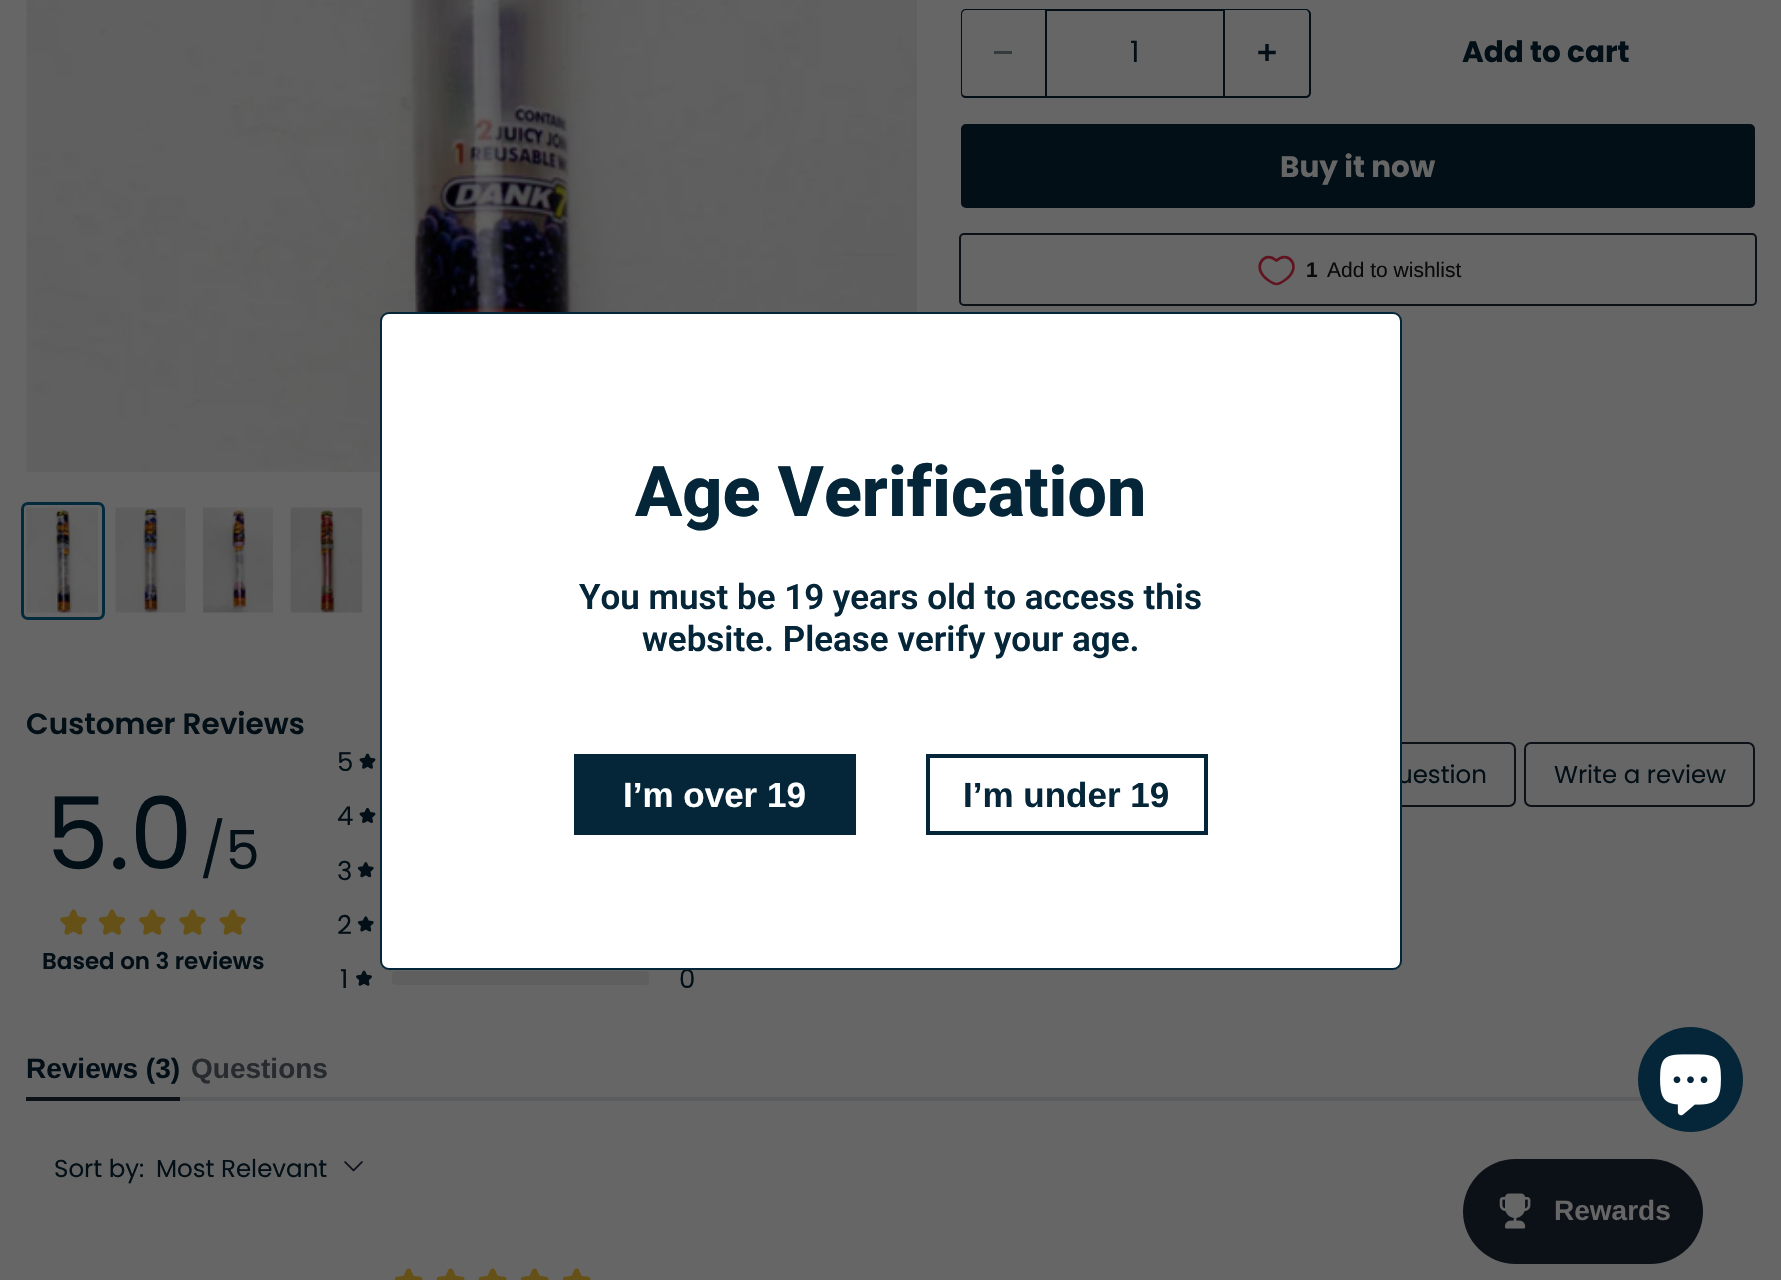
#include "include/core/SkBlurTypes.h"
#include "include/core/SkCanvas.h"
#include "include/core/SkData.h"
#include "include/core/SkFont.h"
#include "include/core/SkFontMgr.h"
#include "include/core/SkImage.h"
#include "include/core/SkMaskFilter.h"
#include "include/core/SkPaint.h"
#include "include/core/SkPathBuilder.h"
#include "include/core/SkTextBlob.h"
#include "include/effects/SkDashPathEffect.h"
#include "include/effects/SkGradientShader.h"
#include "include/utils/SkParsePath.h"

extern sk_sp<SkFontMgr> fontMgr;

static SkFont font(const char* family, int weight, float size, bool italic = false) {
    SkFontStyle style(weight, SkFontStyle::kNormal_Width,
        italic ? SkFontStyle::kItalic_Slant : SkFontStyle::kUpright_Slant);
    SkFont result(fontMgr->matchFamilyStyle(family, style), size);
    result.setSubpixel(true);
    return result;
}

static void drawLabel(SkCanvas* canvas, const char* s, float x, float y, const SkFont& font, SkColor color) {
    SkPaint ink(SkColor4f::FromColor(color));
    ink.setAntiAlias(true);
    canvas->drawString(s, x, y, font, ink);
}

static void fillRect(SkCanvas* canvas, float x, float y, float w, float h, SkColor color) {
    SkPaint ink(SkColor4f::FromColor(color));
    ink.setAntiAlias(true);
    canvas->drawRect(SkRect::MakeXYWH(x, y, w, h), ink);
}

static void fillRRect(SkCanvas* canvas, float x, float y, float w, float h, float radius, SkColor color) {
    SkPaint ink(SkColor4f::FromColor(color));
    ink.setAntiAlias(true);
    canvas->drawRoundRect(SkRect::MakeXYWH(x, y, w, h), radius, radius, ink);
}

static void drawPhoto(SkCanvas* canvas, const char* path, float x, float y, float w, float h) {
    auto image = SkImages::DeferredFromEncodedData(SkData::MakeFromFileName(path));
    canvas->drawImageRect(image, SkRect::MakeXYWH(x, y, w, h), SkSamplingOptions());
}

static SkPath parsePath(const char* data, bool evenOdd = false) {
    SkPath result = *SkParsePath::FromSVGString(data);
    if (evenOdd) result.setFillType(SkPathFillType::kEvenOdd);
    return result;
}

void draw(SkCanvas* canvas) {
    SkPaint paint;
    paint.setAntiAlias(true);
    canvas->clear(0xFF666666);
    drawPhoto(canvas, "assets/img1.png", 26, 0, 891, 473);
    paint.setStroke(true);
    paint.setStrokeWidth(3);
    paint.setColor(0xFF042A3E);
    canvas->drawRoundRect(SkRect::MakeXYWH(22.5f, 503.5f, 81, 115), 5.5f, 5.5f, paint);
    drawPhoto(canvas, "assets/img2.png", 26, 507, 72, 106);
    drawPhoto(canvas, "assets/img3.png", 115, 507, 71, 106);
    drawPhoto(canvas, "assets/img4.png", 203, 507, 70, 106);
    drawPhoto(canvas, "assets/img5.png", 290, 507, 73, 106);
    paint.setStroke(false);
    paint.setColor(0xFF020F16);
    canvas->drawPath(parsePath("M966 9H1045V98H966C963 98 961 96 961 93V14C961 11 963 9 966 9ZM966 10H1045V96H966C964 96 962 95 962 93V14C962 12 964 10 966 10Z", true), paint);
    fillRect(canvas, 994, 51, 18, 3, 0xFF343B3E);
    paint.setStroke(true);
    paint.setStrokeWidth(2);
    canvas->drawRect(SkRect::MakeXYWH(1046, 10, 178, 87), paint);
    SkFont font1 = font("Poppins", 400, 29.5f);
    drawLabel(canvas, "1", 1130, 62, font1, 0xFF020F16);
    paint.setStroke(false);
    canvas->drawPath(parsePath("M1225 9H1306C1308 9 1311 11 1311 14V93C1311 96 1308 98 1306 98H1225ZM1225 10H1306C1307 10 1309 12 1309 14V93C1309 95 1307 96 1306 96H1225Z", true), paint);
    drawPhoto(canvas, "assets/img6.png", 1258, 44, 18, 17);
    SkFont font2 = font("Poppins", 700, 29.5f);
    drawLabel(canvas, "Add to cart", 1462, 62, font2, 0xFF020F16);
    canvas->drawRoundRect(SkRect::MakeXYWH(962, 125, 792, 82), 4, 4, paint);
    paint.setStroke(true);
    canvas->drawRoundRect(SkRect::MakeXYWH(962, 125, 792, 82), 4, 4, paint);
    drawLabel(canvas, "Buy it now", 1280, 177, font2, 0xFF666666);
    paint.setColor(0xFF0C1017);
    canvas->drawRoundRect(SkRect::MakeXYWH(960, 234, 796, 71), 4, 4, paint);
    paint.setStrokeWidth(2.7f);
    paint.setColor(0xFF601420);
    canvas->drawPath(parsePath("M1275.5 260L1276.5 260.5C1288.5 249.5 1303 267.5 1285 280C1283 281.5 1279 284 1276.5 284C1274 284 1270 281.5 1268 280C1250 267.5 1265.5 250 1275.5 260Z"), paint);
    SkFont font3 = font("Liberation Sans", 700, 21);
    drawLabel(canvas, "1", 1306, 277, font3, 0xFF0A0A0A);
    SkFont font4 = font("Liberation Sans", 400, 21);
    drawLabel(canvas, "Add to wishlist", 1327, 277, font4, 0xFF0A0A0A);
    SkFont font5 = font("Poppins", 600, 29.5f);
    drawLabel(canvas, "Customer Reviews", 26, 734, font5, 0xFF020F16);
    SkFont font6 = font("Poppins", 400, 100);
    drawLabel(canvas, "5.0", 46, 869, font6, 0xFF020F16);
    SkFont font7 = font("Poppins", 400, 54);
    drawLabel(canvas, "/5", 200, 869, font7, 0xFF020F16);
    drawPhoto(canvas, "assets/img7.png", 60, 909, 27, 26);
    drawPhoto(canvas, "assets/img8.png", 98, 909, 28, 26);
    drawPhoto(canvas, "assets/img9.png", 139, 909, 27, 26);
    drawPhoto(canvas, "assets/img7.png", 179, 909, 27, 26);
    drawPhoto(canvas, "assets/img10.png", 219, 909, 27, 26);
    SkFont font8 = font("Poppins", 600, 23);
    drawLabel(canvas, "Based on 3 reviews", 42, 969, font8, 0xFF020F16);
    SkFont font9 = font("Poppins", 400, 26);
    drawLabel(canvas, "5", 337, 771, font9, 0xFF020F16);
    drawPhoto(canvas, "assets/img11.png", 359, 753, 17, 16);
    drawLabel(canvas, "4", 337, 825, font9, 0xFF020F16);
    drawPhoto(canvas, "assets/img12.png", 359, 807, 17, 16);
    drawLabel(canvas, "3", 337, 880, font9, 0xFF020F16);
    drawPhoto(canvas, "assets/img13.png", 357, 862, 17, 16);
    drawLabel(canvas, "2", 337, 934, font9, 0xFF020F16);
    drawPhoto(canvas, "assets/img14.png", 357, 916, 17, 16);
    drawLabel(canvas, "1", 340, 988, font9, 0xFF020F16);
    drawPhoto(canvas, "assets/img15.png", 356, 970, 16, 16);
    fillRRect(canvas, 392, 971, 257, 14, 4, 0xFF5F5F5F);
    drawLabel(canvas, "0", 679, 988, font9, 0xFF020F16);
    paint.setStrokeWidth(2);
    paint.setColor(0xFF0C1017);
    canvas->drawRoundRect(SkRect::MakeXYWH(1280, 743, 235, 63), 6, 6, paint);
    SkFont font10 = font("Poppins", 400, 24.5f);
    drawLabel(canvas, "uestion", 1397, 783, font10, 0xFF020F16);
    canvas->drawRoundRect(SkRect::MakeXYWH(1525, 743, 229, 63), 6, 6, paint);
    drawLabel(canvas, "Write a review", 1554, 783, font10, 0xFF020F16);
    fillRect(canvas, 26, 1097, 154, 4, 0xFF0C1017);
    SkFont font11 = font("Liberation Sans", 700, 28);
    drawLabel(canvas, "Reviews (3)", 26, 1078, font11, 0xFF020F16);
    drawLabel(canvas, "Questions", 191, 1078, font11, 0xFF272A2E);
    fillRect(canvas, 180, 1097, 1463, 4, 0xFF5B5C5E);
    drawLabel(canvas, "Sort by:", 54, 1177, font10, 0xFF020F16);
    drawLabel(canvas, "Most Relevant", 156, 1177, font10, 0xFF020F16);
    drawPhoto(canvas, "assets/img16.png", 344, 1161, 19, 11);
    drawPhoto(canvas, "assets/img17.png", 394, 1268, 29, 12);
    drawPhoto(canvas, "assets/img17.png", 436, 1268, 29, 12);
    drawPhoto(canvas, "assets/img17.png", 478, 1268, 29, 12);
    drawPhoto(canvas, "assets/img17.png", 520, 1268, 29, 12);
    drawPhoto(canvas, "assets/img17.png", 562, 1268, 29, 12);
    paint.setStroke(false);
    paint.setColor(0xFFFFFFFF);
    canvas->drawRoundRect(SkRect::MakeXYWH(381, 313, 1020, 656), 8, 8, paint);
    paint.setStroke(true);
    paint.setColor(0xFF042638);
    canvas->drawRoundRect(SkRect::MakeXYWH(381, 313, 1020, 656), 8, 8, paint);
    SkFont font12 = font("Roboto", 800, 70);
    drawLabel(canvas, "Age Verification", 635, 516, font12, 0xFF042638);
    SkFont font13 = font("Roboto", 600, 35);
    drawLabel(canvas, "You must be 19 years old to access this", 579, 609, font13, 0xFF042638);
    drawLabel(canvas, "website. Please verify your age.", 642, 651, font13, 0xFF042638);
    fillRect(canvas, 574, 754, 282, 81, 0xFF042638);
    SkFont font14 = font("Liberation Sans", 700, 35);
    drawLabel(canvas, "I’m over 19", 623, 807, font14, 0xFFFFFFFF);
    paint.setStrokeWidth(4);
    canvas->drawRect(SkRect::MakeXYWH(928, 756, 278, 77), paint);
    drawLabel(canvas, "I’m under 19", 963, 807, font14, 0xFF042638);
    paint.setStroke(false);
    canvas->drawCircle(1690.5f, 1079.5f, 52.5f, paint);
    drawPhoto(canvas, "assets/img18.png", 1660, 1054, 61, 62);
    fillRRect(canvas, 1463, 1159, 240, 105, 52.5f, 0xFF0C1017);
    drawPhoto(canvas, "assets/img19.png", 1499, 1193, 32, 36);
    drawLabel(canvas, "Rewards", 1554, 1220, font11, 0xFF666666);
}
